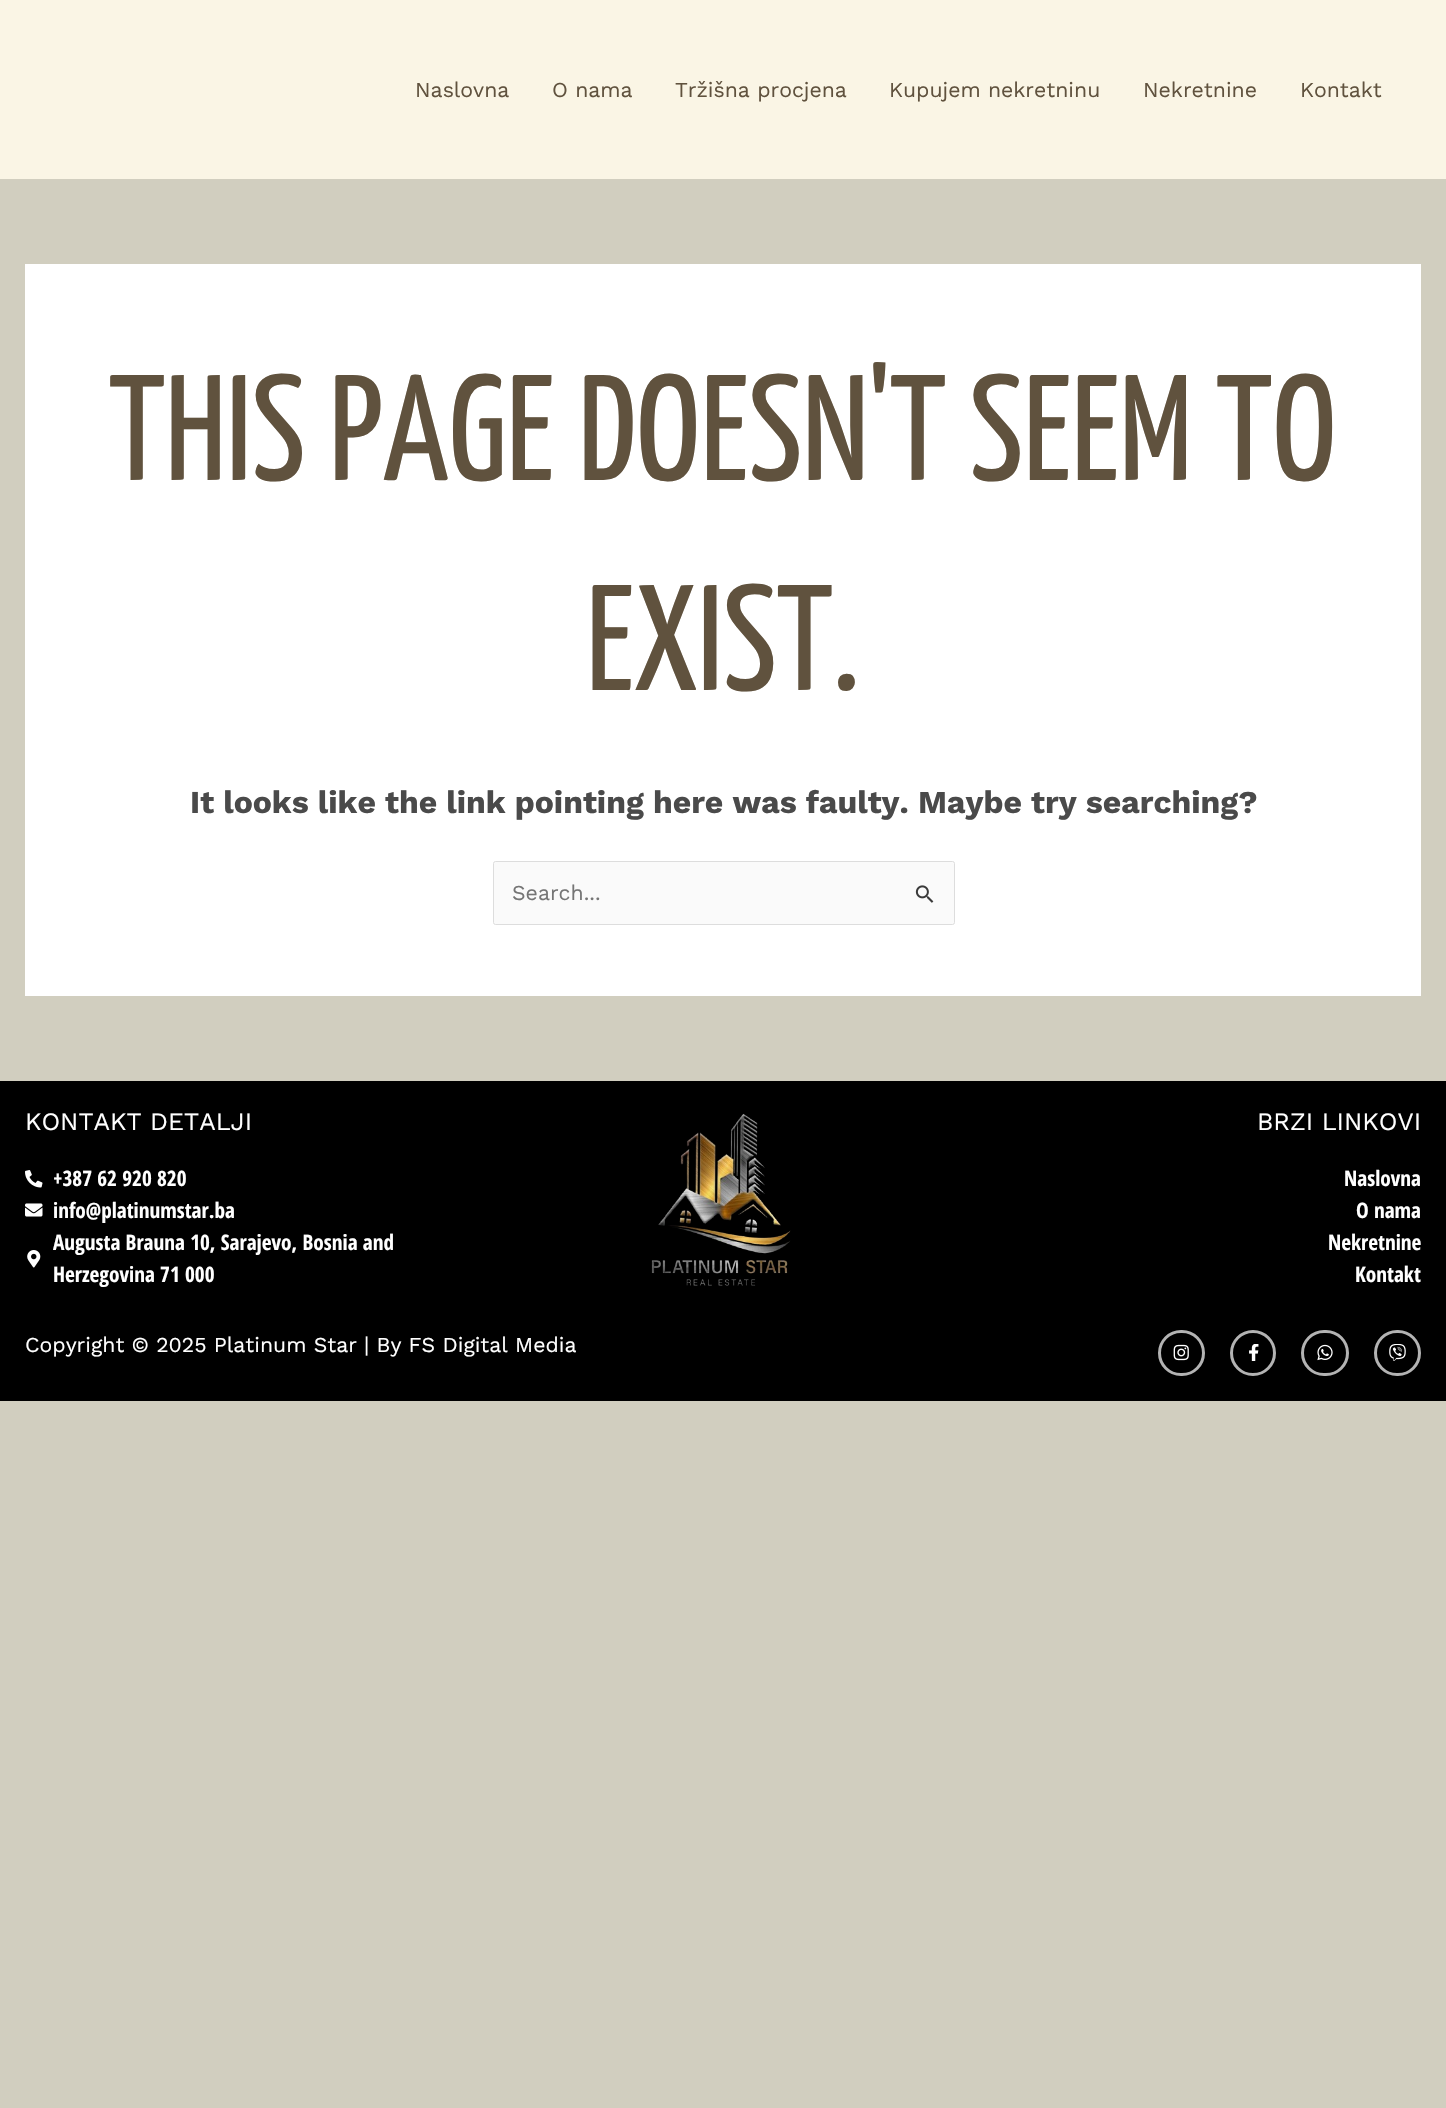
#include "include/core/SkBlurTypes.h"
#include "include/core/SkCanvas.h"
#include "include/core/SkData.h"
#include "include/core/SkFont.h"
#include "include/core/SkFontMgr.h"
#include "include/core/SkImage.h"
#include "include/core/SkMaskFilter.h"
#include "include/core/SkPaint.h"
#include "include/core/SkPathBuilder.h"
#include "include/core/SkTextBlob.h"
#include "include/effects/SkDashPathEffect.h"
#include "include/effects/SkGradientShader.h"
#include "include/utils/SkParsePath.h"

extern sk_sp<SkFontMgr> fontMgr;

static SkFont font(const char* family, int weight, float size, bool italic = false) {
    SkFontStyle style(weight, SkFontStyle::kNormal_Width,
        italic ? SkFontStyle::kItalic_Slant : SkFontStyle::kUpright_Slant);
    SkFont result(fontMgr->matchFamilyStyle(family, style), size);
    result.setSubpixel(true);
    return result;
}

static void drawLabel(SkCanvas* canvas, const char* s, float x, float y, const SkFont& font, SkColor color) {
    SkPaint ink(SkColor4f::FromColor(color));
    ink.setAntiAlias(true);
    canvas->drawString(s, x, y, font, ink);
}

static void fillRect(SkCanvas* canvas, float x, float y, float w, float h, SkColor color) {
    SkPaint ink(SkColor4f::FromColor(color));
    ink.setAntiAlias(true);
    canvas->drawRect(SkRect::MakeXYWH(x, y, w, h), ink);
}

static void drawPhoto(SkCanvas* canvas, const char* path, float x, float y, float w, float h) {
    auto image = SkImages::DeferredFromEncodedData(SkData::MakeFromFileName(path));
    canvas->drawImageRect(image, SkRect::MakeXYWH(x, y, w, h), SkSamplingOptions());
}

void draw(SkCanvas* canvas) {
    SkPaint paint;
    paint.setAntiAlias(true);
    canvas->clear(0xFFD1CEBF);
    fillRect(canvas, 0, 0, 1446, 179, 0xFFFAF5E5);
    SkFont font1 = font("Work Sans", 400, 21.25f);
    drawLabel(canvas, "Naslovna", 415, 97, font1, 0xFF60523E);
    drawLabel(canvas, "O nama", 552, 97, font1, 0xFF60523E);
    drawLabel(canvas, "Tržišna procjena", 675, 97, font1, 0xFF60523E);
    drawLabel(canvas, "Kupujem nekretninu", 889, 97, font1, 0xFF60523E);
    drawLabel(canvas, "Nekretnine", 1143, 97, font1, 0xFF60523E);
    drawLabel(canvas, "Kontakt", 1300, 97, font1, 0xFF60523E);
    fillRect(canvas, 25, 264, 1396, 732, 0xFFFFFFFF);
    SkFont font2 = font("Yanone Kaffeesatz", 200, 150);
    drawLabel(canvas, "THIS PAGE DOESN'T SEEM TO", 109, 480, font2, 0xFF60523E);
    drawLabel(canvas, "EXIST.", 586, 690, font2, 0xFF60523E);
    SkFont font3 = font("Work Sans", 700, 31.9f);
    drawLabel(canvas, "It looks like the link pointing here was faulty. Maybe try searching?", 190, 813, font3, 0xFF4A4A4A);
    paint.setColor(0xFFFAFAFA);
    canvas->drawRoundRect(SkRect::MakeXYWH(493.5f, 861.5f, 461, 63), 2, 2, paint);
    paint.setStroke(true);
    paint.setStrokeWidth(1);
    paint.setColor(0xFFDDDDDD);
    canvas->drawRoundRect(SkRect::MakeXYWH(493.5f, 861.5f, 461, 63), 2, 2, paint);
    drawLabel(canvas, "Search...", 512, 900, font1, 0xFF757575);
    drawPhoto(canvas, "assets/img1.png", 915, 885, 19, 18);
    fillRect(canvas, 0, 1081, 1446, 320, 0xFF000000);
    SkFont font4 = font("Work Sans", 400, 25);
    drawLabel(canvas, "KONTAKT DETALJI", 25, 1130, font4, 0xFFFFFFFF);
    drawPhoto(canvas, "assets/img2.png", 25, 1170, 18, 18);
    SkFont font5 = font("Open Sans Condensed", 700, 21.25f);
    drawLabel(canvas, "+387 62 920 820", 53, 1186, font5, 0xFFFFFFFF);
    drawPhoto(canvas, "assets/img3.png", 25, 1203, 18, 14);
    drawLabel(canvas, "info@platinumstar.ba", 53, 1218, font5, 0xFFFFFFFF);
    drawPhoto(canvas, "assets/img4.png", 27, 1250, 14, 18);
    drawLabel(canvas, "Augusta Brauna 10, Sarajevo, Bosnia and", 53, 1250, font5, 0xFFFFFFFF);
    drawLabel(canvas, "Herzegovina 71 000", 53, 1282, font5, 0xFFFFFFFF);
    drawPhoto(canvas, "assets/img5.png", 651, 1113, 140, 173);
    drawLabel(canvas, "BRZI LINKOVI", 1257, 1130, font4, 0xFFFFFFFF);
    drawLabel(canvas, "Naslovna", 1344, 1186, font5, 0xFFFFFFFF);
    drawLabel(canvas, "O nama", 1356, 1218, font5, 0xFFFFFFFF);
    drawLabel(canvas, "Nekretnine", 1328, 1250, font5, 0xFFFFFFFF);
    drawLabel(canvas, "Kontakt", 1355, 1282, font5, 0xFFFFFFFF);
    drawLabel(canvas, "Copyright © 2025 Platinum Star | By FS Digital Media", 25, 1352, font1, 0xFFFFFFFF);
    paint.setStrokeWidth(3);
    paint.setColor(0xFFB3B3B3);
    canvas->drawRoundRect(SkRect::MakeXYWH(1159.5f, 1331.5f, 44, 43), 21.5f, 21.5f, paint);
    drawPhoto(canvas, "assets/img6.png", 1173, 1344, 16, 17);
    canvas->drawCircle(1253, 1353, 21.5f, paint);
    drawPhoto(canvas, "assets/img7.png", 1249, 1344, 10, 17);
    canvas->drawRoundRect(SkRect::MakeXYWH(1302.5f, 1331.5f, 45, 43), 21.5f, 21.5f, paint);
    drawPhoto(canvas, "assets/img8.png", 1317, 1344, 16, 17);
    canvas->drawRoundRect(SkRect::MakeXYWH(1375.5f, 1331.5f, 44, 43), 21.5f, 21.5f, paint);
    drawPhoto(canvas, "assets/img9.png", 1389, 1344, 17, 17);
}
